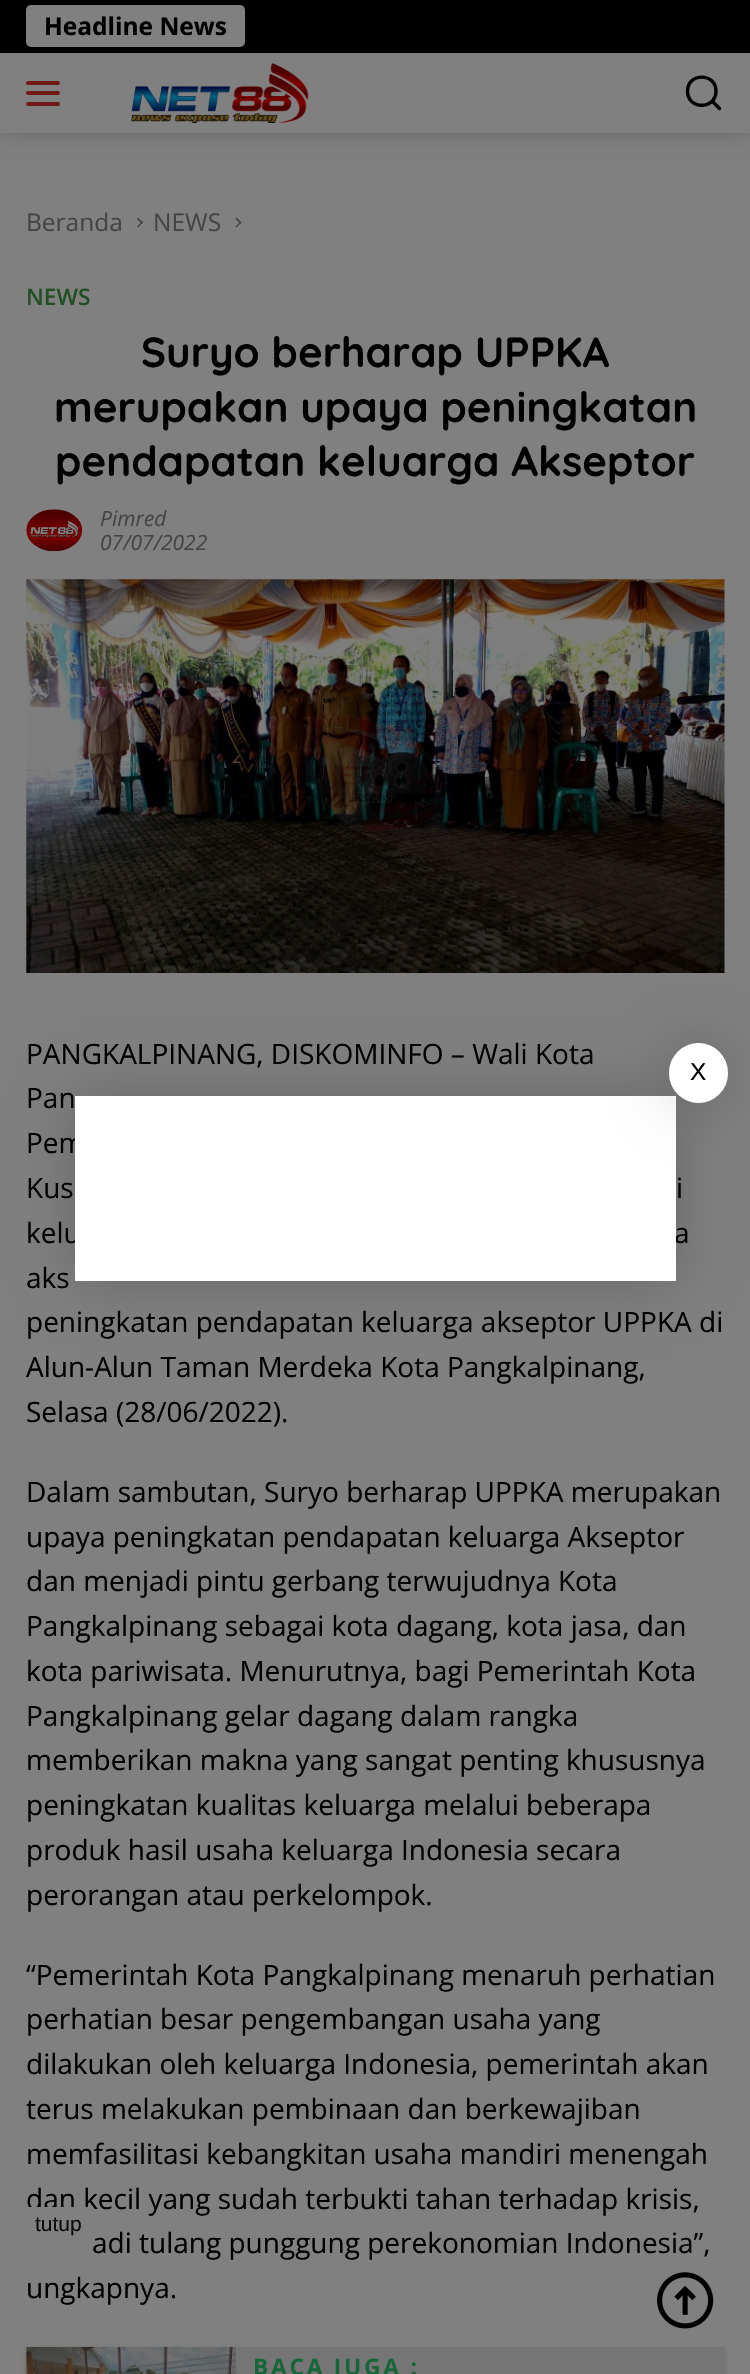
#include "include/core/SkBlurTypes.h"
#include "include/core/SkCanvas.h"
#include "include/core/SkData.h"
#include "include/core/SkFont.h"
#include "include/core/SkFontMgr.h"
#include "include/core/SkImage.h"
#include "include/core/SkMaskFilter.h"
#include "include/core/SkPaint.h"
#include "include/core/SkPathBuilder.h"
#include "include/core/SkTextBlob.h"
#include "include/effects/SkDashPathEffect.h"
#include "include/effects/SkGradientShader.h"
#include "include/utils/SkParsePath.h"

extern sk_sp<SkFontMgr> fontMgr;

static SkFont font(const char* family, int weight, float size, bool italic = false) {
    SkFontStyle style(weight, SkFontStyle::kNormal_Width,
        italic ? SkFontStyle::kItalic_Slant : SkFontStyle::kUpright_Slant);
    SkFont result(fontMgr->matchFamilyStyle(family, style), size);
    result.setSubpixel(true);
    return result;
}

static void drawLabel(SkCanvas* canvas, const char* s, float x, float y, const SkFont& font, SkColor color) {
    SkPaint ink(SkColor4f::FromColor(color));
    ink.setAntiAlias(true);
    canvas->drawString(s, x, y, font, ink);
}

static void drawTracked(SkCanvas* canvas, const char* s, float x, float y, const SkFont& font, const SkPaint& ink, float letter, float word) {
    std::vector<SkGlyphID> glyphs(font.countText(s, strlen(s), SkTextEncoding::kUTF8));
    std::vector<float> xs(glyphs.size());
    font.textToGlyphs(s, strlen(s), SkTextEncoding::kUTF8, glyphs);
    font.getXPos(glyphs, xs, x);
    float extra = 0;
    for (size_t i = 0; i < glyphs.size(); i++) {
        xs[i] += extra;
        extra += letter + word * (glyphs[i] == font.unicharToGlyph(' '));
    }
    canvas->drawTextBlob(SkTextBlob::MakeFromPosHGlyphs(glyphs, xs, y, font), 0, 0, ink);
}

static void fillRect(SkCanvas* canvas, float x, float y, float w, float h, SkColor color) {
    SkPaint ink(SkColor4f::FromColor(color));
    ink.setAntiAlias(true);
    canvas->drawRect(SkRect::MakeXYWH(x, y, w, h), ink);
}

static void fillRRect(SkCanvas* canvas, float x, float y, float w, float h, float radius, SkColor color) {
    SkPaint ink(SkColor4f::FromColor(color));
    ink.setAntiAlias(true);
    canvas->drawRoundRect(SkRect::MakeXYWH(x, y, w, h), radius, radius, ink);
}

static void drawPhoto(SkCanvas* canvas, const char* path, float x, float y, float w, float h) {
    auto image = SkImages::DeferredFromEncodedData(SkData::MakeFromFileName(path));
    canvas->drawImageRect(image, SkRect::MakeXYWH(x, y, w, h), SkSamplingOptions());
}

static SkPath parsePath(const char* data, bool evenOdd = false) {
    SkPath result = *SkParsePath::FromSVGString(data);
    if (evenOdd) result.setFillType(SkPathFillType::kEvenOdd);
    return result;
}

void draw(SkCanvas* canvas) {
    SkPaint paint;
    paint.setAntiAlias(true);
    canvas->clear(0xFF808080);
    paint.setColor(0x33000000);
    paint.setMaskFilter(SkMaskFilter::MakeBlur(kNormal_SkBlurStyle, 9));
    canvas->drawRect(SkRect::MakeXYWH(0, 0, 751, 133), paint);
    paint.setMaskFilter(nullptr);
    fillRect(canvas, 0, 53, 750, 80, 0xFF808080);
    fillRect(canvas, 0, 0, 750, 53, 0xFF000000);
    fillRRect(canvas, 26, 5, 219, 42, 5, 0xFF808080);
    SkFont font1 = font("Open Sans", 700, 24.5f);
    drawLabel(canvas, "Headline News", 44, 35, font1, 0xFF000000);
    fillRRect(canvas, 26, 81, 34, 4, 2, 0xFF6F1A1A);
    fillRRect(canvas, 26, 91, 34, 4, 2, 0xFF6F1A1A);
    fillRRect(canvas, 26, 102, 34, 4, 2, 0xFF6F1A1A);
    drawPhoto(canvas, "assets/img1.png", 131, 63, 178, 60);
    paint.setStroke(true);
    paint.setStrokeWidth(3.4f);
    paint.setStrokeCap(SkPaint::kRound_Cap);
    paint.setColor(0xFF000000);
    canvas->drawPath(parsePath("M719.5 108.5L712 101M716 91C716 110 687.5 110 687.5 91C687.5 72.5 716 72.5 716 91Z"), paint);
    SkFont font2 = font("Open Sans", 400, 24.5f);
    drawLabel(canvas, "Beranda", 26, 231, font2, 0xFF444444);
    paint.setStroke(false);
    paint.setColor(0xFF444444);
    canvas->drawPath(parsePath("M137 219L138 217.5L143 222.5L142 224Z"), paint);
    canvas->drawPath(parsePath("M137 226.5L142 221.5L143 222.5L138 227.5Z"), paint);
    drawLabel(canvas, "NEWS", 153, 231, font2, 0xFF444444);
    canvas->drawPath(parsePath("M235.5 219L236.5 217.5L241.5 222.5L240.5 224Z"), paint);
    canvas->drawPath(parsePath("M235.5 226.5L240.5 221.5L241.5 222.5L236.5 227.5Z"), paint);
    SkFont font3 = font("Open Sans", 600, 22.75f);
    drawLabel(canvas, "NEWS", 26, 305, font3, 0xFF225024);
    SkFont font4 = font("Quicksand", 700, 42);
    drawLabel(canvas, "Suryo berharap UPPKA", 141, 367, font4, 0xFF000000);
    drawLabel(canvas, "merupakan upaya peningkatan", 54, 422, font4, 0xFF000000);
    drawLabel(canvas, "pendapatan keluarga Akseptor", 55, 476, font4, 0xFF000000);
    drawPhoto(canvas, "assets/img2.png", 26, 509, 57, 43);
    SkFont font5 = font("Open Sans", 400, 21, true);
    drawLabel(canvas, "Pimred", 100, 526, font5, 0xFF444444);
    drawLabel(canvas, "07/07/2022", 100, 550, font5, 0xFF444444);
    drawPhoto(canvas, "assets/img3.png", 26, 579, 699, 394);
    SkFont font6 = font("Open Sans", 400, 28);
    drawLabel(canvas, "PANGKALPINANG, DISKOMINFO – Wali Kota", 26, 1064, font6, 0xFF000000);
    drawLabel(canvas, "Pan", 26, 1108, font6, 0xFF000000);
    drawLabel(canvas, "Pem", 26, 1153, font6, 0xFF000000);
    drawLabel(canvas, "Kus", 26, 1198, font6, 0xFF000000);
    drawLabel(canvas, "i", 676, 1198, font6, 0xFF000000);
    drawLabel(canvas, "kelu", 26, 1243, font6, 0xFF000000);
    drawLabel(canvas, "a", 674, 1243, font6, 0xFF000000);
    drawLabel(canvas, "aks", 26, 1288, font6, 0xFF000000);
    drawLabel(canvas, "peningkatan pendapatan keluarga akseptor UPPKA di", 26, 1332, font6, 0xFF000000);
    drawLabel(canvas, "Alun-Alun Taman Merdeka Kota Pangkalpinang,", 26, 1377, font6, 0xFF000000);
    drawLabel(canvas, "Selasa (28/06/2022).", 26, 1422, font6, 0xFF000000);
    drawLabel(canvas, "Dalam sambutan, Suryo berharap UPPKA merupakan", 26, 1502, font6, 0xFF000000);
    drawLabel(canvas, "upaya peningkatan pendapatan keluarga Akseptor", 26, 1547, font6, 0xFF000000);
    drawLabel(canvas, "dan menjadi pintu gerbang terwujudnya Kota", 26, 1591, font6, 0xFF000000);
    drawLabel(canvas, "Pangkalpinang sebagai kota dagang, kota jasa, dan", 26, 1636, font6, 0xFF000000);
    drawLabel(canvas, "kota pariwisata. Menurutnya, bagi Pemerintah Kota", 26, 1681, font6, 0xFF000000);
    drawLabel(canvas, "Pangkalpinang gelar dagang dalam rangka", 26, 1726, font6, 0xFF000000);
    drawLabel(canvas, "memberikan makna yang sangat penting khususnya", 26, 1770, font6, 0xFF000000);
    drawLabel(canvas, "peningkatan kualitas keluarga melalui beberapa", 26, 1815, font6, 0xFF000000);
    drawLabel(canvas, "produk hasil usaha keluarga Indonesia secara", 26, 1860, font6, 0xFF000000);
    drawLabel(canvas, "perorangan atau perkelompok.", 26, 1905, font6, 0xFF000000);
    drawLabel(canvas, "“Pemerintah Kota Pangkalpinang menaruh perhatian", 26, 1985, font6, 0xFF000000);
    drawLabel(canvas, "perhatian besar pengembangan usaha yang", 26, 2029, font6, 0xFF000000);
    drawLabel(canvas, "dilakukan oleh keluarga Indonesia, pemerintah akan", 26, 2074, font6, 0xFF000000);
    drawLabel(canvas, "terus melakukan pembinaan dan berkewajiban", 26, 2119, font6, 0xFF000000);
    drawLabel(canvas, "memfasilitasi kebangkitan usaha mandiri menengah", 26, 2164, font6, 0xFF000000);
    drawLabel(canvas, "dan kecil yang sudah terbukti tahan terhadap krisis,", 26, 2209, font6, 0xFF000000);
    drawLabel(canvas, "adi tulang punggung perekonomian Indonesia”,", 92, 2253, font6, 0xFF000000);
    drawLabel(canvas, "ungkapnya.", 26, 2298, font6, 0xFF000000);
    paint.setColor(0x2B000000);
    paint.setMaskFilter(SkMaskFilter::MakeBlur(kNormal_SkBlurStyle, 2));
    canvas->drawRect(SkRect::MakeXYWH(26, 2349, 699, 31), paint);
    paint.setMaskFilter(nullptr);
    fillRect(canvas, 26, 2347, 699, 27, 0xFF757575);
    drawPhoto(canvas, "assets/img4.png", 26, 2346, 210, 28);
    SkFont font7 = font("Open Sans", 700, 22.75f);
    paint.setColor(0xFF176639);
    drawTracked(canvas, "BACA JUGA :", 253, 2375, font7, paint, 2.75f, 0);
    paint.setColor(0x33000000);
    paint.setMaskFilter(SkMaskFilter::MakeBlur(kNormal_SkBlurStyle, 28));
    canvas->drawRect(SkRect::MakeXYWH(75, 1096, 601, 185), paint);
    paint.setMaskFilter(nullptr);
    fillRect(canvas, 75, 1096, 601, 185, 0xFFFFFFFF);
    paint.setMaskFilter(SkMaskFilter::MakeBlur(kNormal_SkBlurStyle, 28));
    canvas->drawRoundRect(SkRect::MakeXYWH(669, 1043, 59, 60), 29.5f, 29.5f, paint);
    paint.setMaskFilter(nullptr);
    fillRRect(canvas, 669, 1043, 59, 60, 29.5f, 0xFFFFFFFF);
    SkFont font8 = font("Liberation Sans", 400, 24.5f);
    drawLabel(canvas, "X", 690, 1080, font8, 0xFF000000);
    fillRect(canvas, 29, 2207, 60, 3, 0xFF808080);
    SkFont font9 = font("Liberation Sans", 400, 21);
    drawLabel(canvas, "tutup", 35, 2231, font9, 0xFF090909);
    drawPhoto(canvas, "assets/img5.png", 657, 2272, 57, 57);
}
